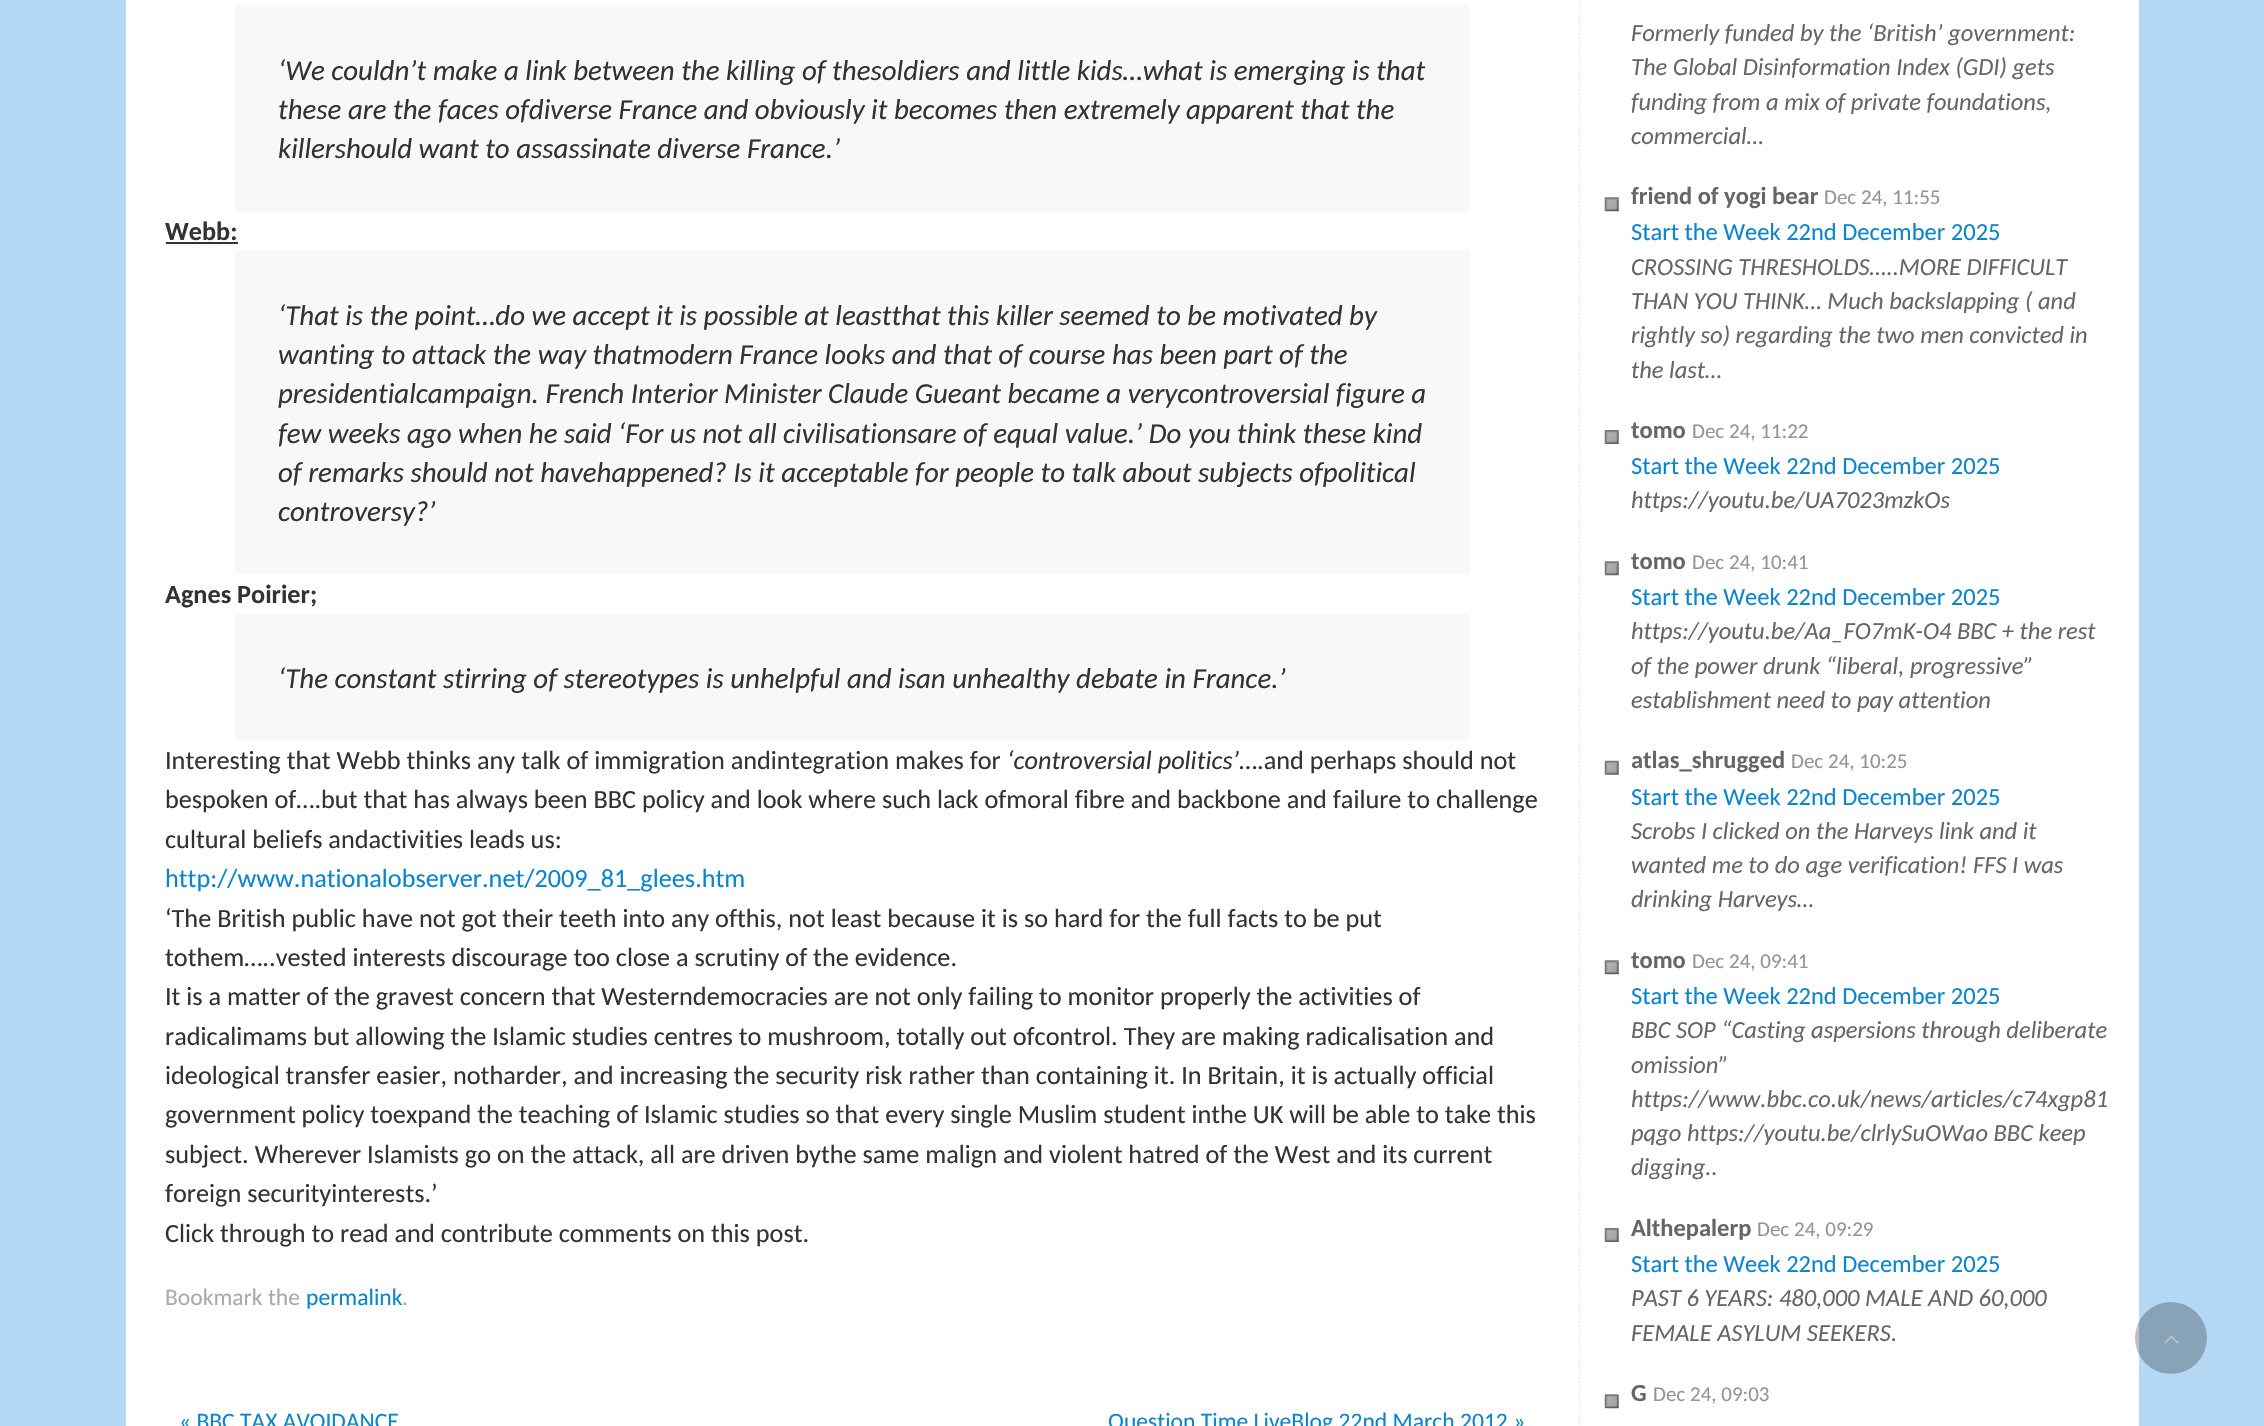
#include "include/core/SkBlurTypes.h"
#include "include/core/SkCanvas.h"
#include "include/core/SkData.h"
#include "include/core/SkFont.h"
#include "include/core/SkFontMgr.h"
#include "include/core/SkImage.h"
#include "include/core/SkMaskFilter.h"
#include "include/core/SkPaint.h"
#include "include/core/SkPathBuilder.h"
#include "include/core/SkTextBlob.h"
#include "include/effects/SkDashPathEffect.h"
#include "include/effects/SkGradientShader.h"
#include "include/utils/SkParsePath.h"

extern sk_sp<SkFontMgr> fontMgr;

static SkFont font(const char* family, int weight, float size, bool italic = false) {
    SkFontStyle style(weight, SkFontStyle::kNormal_Width,
        italic ? SkFontStyle::kItalic_Slant : SkFontStyle::kUpright_Slant);
    SkFont result(fontMgr->matchFamilyStyle(family, style), size);
    result.setSubpixel(true);
    return result;
}

static void drawLabel(SkCanvas* canvas, const char* s, float x, float y, const SkFont& font, SkColor color) {
    SkPaint ink(SkColor4f::FromColor(color));
    ink.setAntiAlias(true);
    canvas->drawString(s, x, y, font, ink);
}

static void fillRect(SkCanvas* canvas, float x, float y, float w, float h, SkColor color) {
    SkPaint ink(SkColor4f::FromColor(color));
    ink.setAntiAlias(true);
    canvas->drawRect(SkRect::MakeXYWH(x, y, w, h), ink);
}

static void fillRRect(SkCanvas* canvas, float x, float y, float w, float h, float radius, SkColor color) {
    SkPaint ink(SkColor4f::FromColor(color));
    ink.setAntiAlias(true);
    canvas->drawRoundRect(SkRect::MakeXYWH(x, y, w, h), radius, radius, ink);
}

static void drawPhoto(SkCanvas* canvas, const char* path, float x, float y, float w, float h) {
    auto image = SkImages::DeferredFromEncodedData(SkData::MakeFromFileName(path));
    canvas->drawImageRect(image, SkRect::MakeXYWH(x, y, w, h), SkSamplingOptions());
}

static SkPath parsePath(const char* data, bool evenOdd = false) {
    SkPath result = *SkParsePath::FromSVGString(data);
    if (evenOdd) result.setFillType(SkPathFillType::kEvenOdd);
    return result;
}

void draw(SkCanvas* canvas) {
    SkPaint paint;
    paint.setAntiAlias(true);
    canvas->clear(0xFFB5D9F4);
    fillRect(canvas, 126, 0, 2013, 1426, 0xFFFFFFFF);
    fillRRect(canvas, 235, 5, 1235, 207, 4, 0xFFF8F8F8);
    SkFont font1 = font("Carlito", 400, 28.9f, true);
    drawLabel(canvas, "‘We couldn’t make a link between the killing of thesoldiers and little kids…what is emerging is that", 278, 80, font1, 0xFF333333);
    drawLabel(canvas, "these are the faces ofdiverse France and obviously it becomes then extremely apparent that the", 278, 119, font1, 0xFF333333);
    drawLabel(canvas, "killershould want to assassinate diverse France.’", 278, 158, font1, 0xFF333333);
    SkFont font2 = font("Carlito", 700, 26.25f);
    drawLabel(canvas, "Webb:", 165, 240, font2, 0xFF333333);
    fillRect(canvas, 166, 242, 72, 2, 0xFF333333);
    fillRRect(canvas, 235, 250, 1235, 324, 4, 0xFFF8F8F8);
    drawLabel(canvas, "‘That is the point…do we accept it is possible at leastthat this killer seemed to be motivated by", 278, 325, font1, 0xFF333333);
    drawLabel(canvas, "wanting to attack the way thatmodern France looks and that of course has been part of the", 278, 364, font1, 0xFF333333);
    drawLabel(canvas, "presidentialcampaign. French Interior Minister Claude Gueant became a verycontroversial figure a", 278, 403, font1, 0xFF333333);
    drawLabel(canvas, "few weeks ago when he said ‘For us not all civilisationsare of equal value.’ Do you think these kind", 278, 443, font1, 0xFF333333);
    drawLabel(canvas, "of remarks should not havehappened? Is it acceptable for people to talk about subjects ofpolitical", 278, 482, font1, 0xFF333333);
    drawLabel(canvas, "controversy?’", 278, 521, font1, 0xFF333333);
    drawLabel(canvas, "Agnes Poirier;", 165, 603, font2, 0xFF333333);
    fillRRect(canvas, 235, 614, 1235, 126, 4, 0xFFF8F8F8);
    drawLabel(canvas, "‘The constant stirring of stereotypes is unhelpful and isan unhealthy debate in France.’", 278, 688, font1, 0xFF333333);
    SkFont font3 = font("Carlito", 400, 26.25f);
    drawLabel(canvas, "Interesting that Webb thinks any talk of immigration andintegration makes for", 165, 769, font3, 0xFF333333);
    SkFont font4 = font("Carlito", 400, 26.25f, true);
    drawLabel(canvas, "‘controversial politics’", 1007, 769, font4, 0xFF333333);
    drawLabel(canvas, "….and perhaps should not", 1239, 769, font3, 0xFF333333);
    drawLabel(canvas, "bespoken of….but that has always been BBC policy and look where such lack ofmoral fibre and backbone and failure to challenge", 165, 808, font3, 0xFF333333);
    drawLabel(canvas, "cultural beliefs andactivities leads us:", 165, 848, font3, 0xFF333333);
    drawLabel(canvas, "http://www.nationalobserver.net/2009_81_glees.htm", 165, 887, font3, 0xFF0D85CC);
    drawLabel(canvas, "‘The British public have not got their teeth into any ofthis, not least because it is so hard for the full facts to be put", 165, 927, font3, 0xFF333333);
    drawLabel(canvas, "tothem…..vested interests discourage too close a scrutiny of the evidence.", 165, 966, font3, 0xFF333333);
    drawLabel(canvas, "It is a matter of the gravest concern that Westerndemocracies are not only failing to monitor properly the activities of", 165, 1005, font3, 0xFF333333);
    drawLabel(canvas, "radicalimams but allowing the Islamic studies centres to mushroom, totally out ofcontrol. They are making radicalisation and", 165, 1045, font3, 0xFF333333);
    drawLabel(canvas, "ideological transfer easier, notharder, and increasing the security risk rather than containing it. In Britain, it is actually official", 165, 1084, font3, 0xFF333333);
    drawLabel(canvas, "government policy toexpand the teaching of Islamic studies so that every single Muslim student inthe UK will be able to take this", 165, 1123, font3, 0xFF333333);
    drawLabel(canvas, "subject. Wherever Islamists go on the attack, all are driven bythe same malign and violent hatred of the West and its current", 165, 1163, font3, 0xFF333333);
    drawLabel(canvas, "foreign securityinterests.’", 165, 1202, font3, 0xFF333333);
    drawLabel(canvas, "Click through to read and contribute comments on this post.", 165, 1242, font3, 0xFF333333);
    SkFont font5 = font("Carlito", 400, 23.6f);
    drawLabel(canvas, "Bookmark the", 165, 1305, font5, 0xFFAAAAAA);
    drawLabel(canvas, "permalink", 306, 1305, font5, 0xFF0D85CC);
    drawLabel(canvas, ".", 402, 1305, font5, 0xFFAAAAAA);
    drawLabel(canvas, "« BBC TAX AVOIDANCE", 179, 1429, font5, 0xFF0D85CC);
    drawLabel(canvas, "Question Time LiveBlog 22nd March 2012 »", 1108, 1429, font5, 0xFF0D85CC);
    paint.setStroke(true);
    paint.setStrokeWidth(1.8f);
    paint.setColor(0xFFEAEAEA);
    paint.setPathEffect(SkDashPathEffect::Make({{1.75f, 1.75f}}, 0));
    canvas->drawPath(parsePath("M1579.5-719V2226"), paint);
    paint.setPathEffect(nullptr);
    SkFont font6 = font("Carlito", 400, 24.5f, true);
    drawLabel(canvas, "Formerly funded by the ‘British’ government:", 1631, 41, font6, 0xFF666666);
    drawLabel(canvas, "The Global Disinformation Index (GDI) gets", 1631, 75, font6, 0xFF666666);
    drawLabel(canvas, "funding from a mix of private foundations,", 1631, 110, font6, 0xFF666666);
    drawLabel(canvas, "commercial…", 1631, 144, font6, 0xFF666666);
    drawPhoto(canvas, "assets/img1.png", 1604, 197, 15, 15);
    SkFont font7 = font("Carlito", 700, 24.5f);
    drawLabel(canvas, "friend of yogi bear", 1631, 204, font7, 0xFF666666);
    SkFont font8 = font("Carlito", 400, 21);
    drawLabel(canvas, "Dec 24, 11:55", 1824, 204, font8, 0xFF949494);
    SkFont font9 = font("Carlito", 400, 24.5f);
    drawLabel(canvas, "Start the Week 22nd December 2025", 1631, 240, font9, 0xFF0D85CC);
    drawLabel(canvas, "CROSSING THRESHOLDS…..MORE DIFFICULT", 1631, 275, font6, 0xFF666666);
    drawLabel(canvas, "THAN YOU THINK… Much backslapping ( and", 1631, 309, font6, 0xFF666666);
    drawLabel(canvas, "rightly so) regarding the two men convicted in", 1631, 343, font6, 0xFF666666);
    drawLabel(canvas, "the last…", 1631, 378, font6, 0xFF666666);
    drawPhoto(canvas, "assets/img2.png", 1604, 430, 15, 14);
    drawLabel(canvas, "tomo", 1631, 438, font7, 0xFF666666);
    drawLabel(canvas, "Dec 24, 11:22", 1692, 438, font8, 0xFF949494);
    drawLabel(canvas, "Start the Week 22nd December 2025", 1631, 474, font9, 0xFF0D85CC);
    drawLabel(canvas, "https://youtu.be/UA7023mzkOs", 1631, 508, font6, 0xFF666666);
    drawPhoto(canvas, "assets/img1.png", 1604, 561, 15, 15);
    drawLabel(canvas, "tomo", 1631, 569, font7, 0xFF666666);
    drawLabel(canvas, "Dec 24, 10:41", 1692, 569, font8, 0xFF949494);
    drawLabel(canvas, "Start the Week 22nd December 2025", 1631, 605, font9, 0xFF0D85CC);
    drawLabel(canvas, "https://youtu.be/Aa_FO7mK-O4 BBC + the rest", 1631, 639, font6, 0xFF666666);
    drawLabel(canvas, "of the power drunk “liberal, progressive”", 1631, 674, font6, 0xFF666666);
    drawLabel(canvas, "establishment need to pay attention", 1631, 708, font6, 0xFF666666);
    drawPhoto(canvas, "assets/img3.png", 1604, 760, 15, 15);
    drawLabel(canvas, "atlas_shrugged", 1631, 768, font7, 0xFF666666);
    drawLabel(canvas, "Dec 24, 10:25", 1791, 768, font8, 0xFF949494);
    drawLabel(canvas, "Start the Week 22nd December 2025", 1631, 805, font9, 0xFF0D85CC);
    drawLabel(canvas, "Scrobs I clicked on the Harveys link and it", 1631, 839, font6, 0xFF666666);
    drawLabel(canvas, "wanted me to do age verification! FFS I was", 1631, 873, font6, 0xFF666666);
    drawLabel(canvas, "drinking Harveys…", 1631, 907, font6, 0xFF666666);
    drawPhoto(canvas, "assets/img1.png", 1604, 960, 15, 15);
    drawLabel(canvas, "tomo", 1631, 968, font7, 0xFF666666);
    drawLabel(canvas, "Dec 24, 09:41", 1692, 968, font8, 0xFF949494);
    drawLabel(canvas, "Start the Week 22nd December 2025", 1631, 1004, font9, 0xFF0D85CC);
    drawLabel(canvas, "BBC SOP “Casting aspersions through deliberate", 1631, 1038, font6, 0xFF666666);
    drawLabel(canvas, "omission”", 1631, 1073, font6, 0xFF666666);
    drawLabel(canvas, "https://www.bbc.co.uk/news/articles/c74xgp81", 1631, 1107, font6, 0xFF666666);
    drawLabel(canvas, "pqgo https://youtu.be/clrlySuOWao BBC keep", 1631, 1141, font6, 0xFF666666);
    drawLabel(canvas, "digging..", 1631, 1175, font6, 0xFF666666);
    drawPhoto(canvas, "assets/img2.png", 1604, 1228, 15, 14);
    drawLabel(canvas, "Althepalerp", 1631, 1236, font7, 0xFF666666);
    drawLabel(canvas, "Dec 24, 09:29", 1757, 1236, font8, 0xFF949494);
    drawLabel(canvas, "Start the Week 22nd December 2025", 1631, 1272, font9, 0xFF0D85CC);
    drawLabel(canvas, "PAST 6 YEARS: 480,000 MALE AND 60,000", 1631, 1306, font6, 0xFF666666);
    drawLabel(canvas, "FEMALE ASYLUM SEEKERS.", 1631, 1341, font6, 0xFF666666);
    drawPhoto(canvas, "assets/img1.png", 1604, 1394, 15, 15);
    drawLabel(canvas, "G", 1631, 1401, font7, 0xFF666666);
    drawLabel(canvas, "Dec 24, 09:03", 1653, 1401, font8, 0xFF949494);
    paint.setStroke(false);
    paint.setColor(0x40000000);
    canvas->drawCircle(2171, 1338, 36, paint);
    drawPhoto(canvas, "assets/img4.png", 2164, 1335, 15, 9);
}
